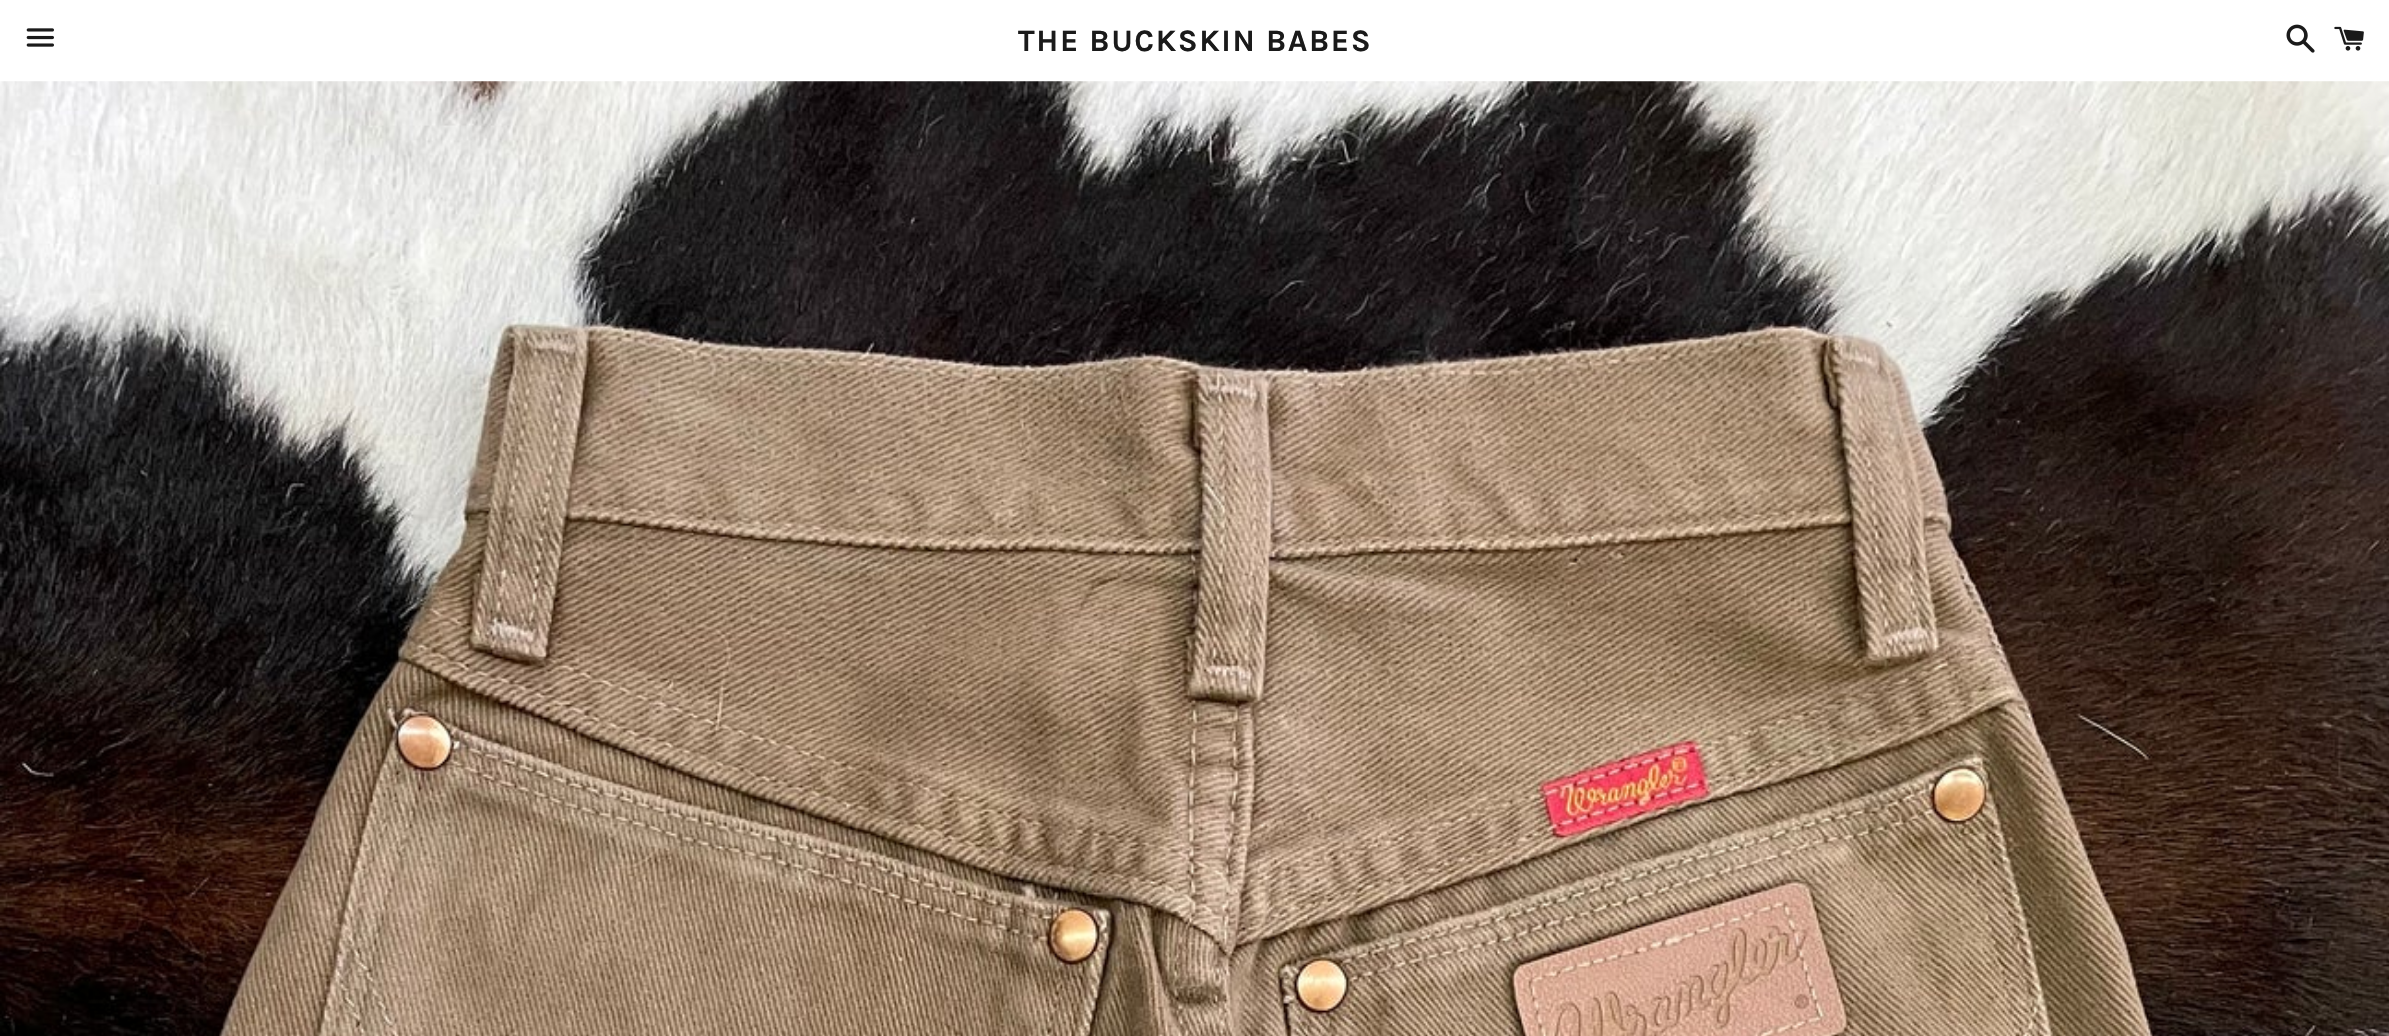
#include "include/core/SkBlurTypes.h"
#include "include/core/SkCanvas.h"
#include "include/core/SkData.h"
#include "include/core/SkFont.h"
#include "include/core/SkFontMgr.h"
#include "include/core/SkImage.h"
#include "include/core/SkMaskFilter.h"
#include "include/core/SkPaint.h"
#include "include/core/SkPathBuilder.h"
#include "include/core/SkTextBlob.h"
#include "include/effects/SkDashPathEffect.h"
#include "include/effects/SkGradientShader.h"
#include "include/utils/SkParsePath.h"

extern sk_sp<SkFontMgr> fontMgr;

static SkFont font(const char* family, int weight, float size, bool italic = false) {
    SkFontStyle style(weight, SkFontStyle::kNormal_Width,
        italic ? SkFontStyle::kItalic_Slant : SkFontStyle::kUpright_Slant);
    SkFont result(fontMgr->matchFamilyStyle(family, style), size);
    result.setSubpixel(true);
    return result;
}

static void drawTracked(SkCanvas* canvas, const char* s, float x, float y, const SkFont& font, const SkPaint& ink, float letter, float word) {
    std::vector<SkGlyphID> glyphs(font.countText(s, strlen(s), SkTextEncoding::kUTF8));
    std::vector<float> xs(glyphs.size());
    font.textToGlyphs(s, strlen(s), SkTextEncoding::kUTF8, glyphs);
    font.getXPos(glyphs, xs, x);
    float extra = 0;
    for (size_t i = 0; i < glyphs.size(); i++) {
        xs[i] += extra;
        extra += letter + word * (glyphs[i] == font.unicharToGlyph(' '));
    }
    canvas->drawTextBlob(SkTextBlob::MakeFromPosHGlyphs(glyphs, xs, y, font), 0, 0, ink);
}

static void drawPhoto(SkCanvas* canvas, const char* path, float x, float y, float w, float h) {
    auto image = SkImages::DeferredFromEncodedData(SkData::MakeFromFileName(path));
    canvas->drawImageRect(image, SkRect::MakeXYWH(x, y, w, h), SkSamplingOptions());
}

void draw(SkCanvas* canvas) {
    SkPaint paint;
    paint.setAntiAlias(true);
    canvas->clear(0xFFFFFFFF);
    drawPhoto(canvas, "assets/img1.png", 26, 28, 28, 19);
    SkFont font1 = font("Karla", 700, 31.25f);
    paint.setColor(0xFF1A1A1A);
    drawTracked(canvas, "THE BUCKSKIN BABES", 1018, 51, font1, paint, 1.6f, 0);
    drawPhoto(canvas, "assets/img2.png", 2286, 24, 29, 29);
    drawPhoto(canvas, "assets/img3.png", 2334, 26, 30, 25);
    drawPhoto(canvas, "assets/img4.png", 0, 81, 2389, 955);
}
